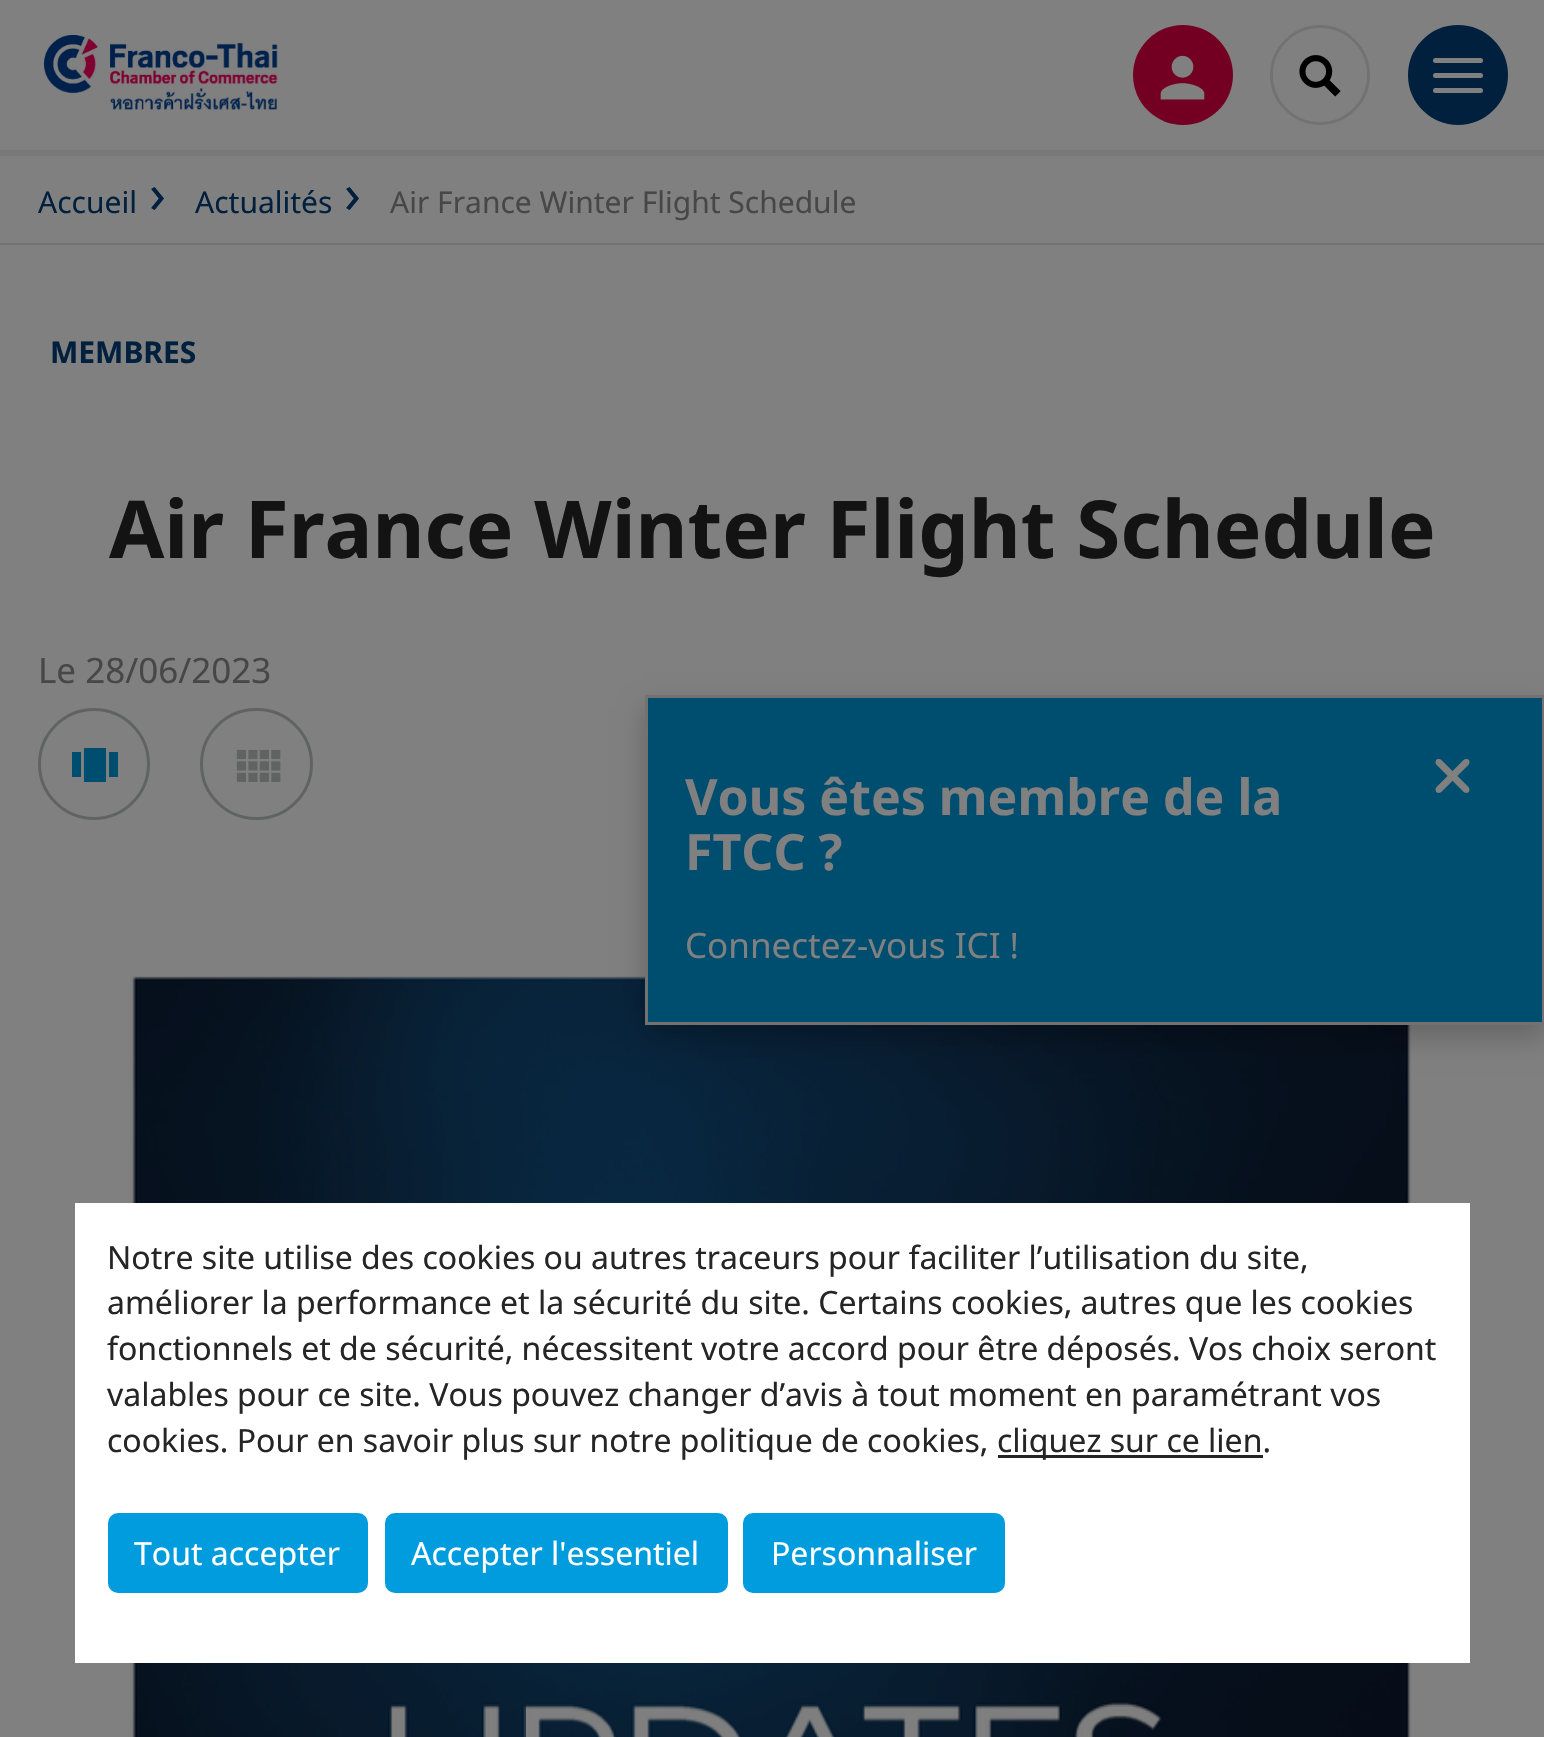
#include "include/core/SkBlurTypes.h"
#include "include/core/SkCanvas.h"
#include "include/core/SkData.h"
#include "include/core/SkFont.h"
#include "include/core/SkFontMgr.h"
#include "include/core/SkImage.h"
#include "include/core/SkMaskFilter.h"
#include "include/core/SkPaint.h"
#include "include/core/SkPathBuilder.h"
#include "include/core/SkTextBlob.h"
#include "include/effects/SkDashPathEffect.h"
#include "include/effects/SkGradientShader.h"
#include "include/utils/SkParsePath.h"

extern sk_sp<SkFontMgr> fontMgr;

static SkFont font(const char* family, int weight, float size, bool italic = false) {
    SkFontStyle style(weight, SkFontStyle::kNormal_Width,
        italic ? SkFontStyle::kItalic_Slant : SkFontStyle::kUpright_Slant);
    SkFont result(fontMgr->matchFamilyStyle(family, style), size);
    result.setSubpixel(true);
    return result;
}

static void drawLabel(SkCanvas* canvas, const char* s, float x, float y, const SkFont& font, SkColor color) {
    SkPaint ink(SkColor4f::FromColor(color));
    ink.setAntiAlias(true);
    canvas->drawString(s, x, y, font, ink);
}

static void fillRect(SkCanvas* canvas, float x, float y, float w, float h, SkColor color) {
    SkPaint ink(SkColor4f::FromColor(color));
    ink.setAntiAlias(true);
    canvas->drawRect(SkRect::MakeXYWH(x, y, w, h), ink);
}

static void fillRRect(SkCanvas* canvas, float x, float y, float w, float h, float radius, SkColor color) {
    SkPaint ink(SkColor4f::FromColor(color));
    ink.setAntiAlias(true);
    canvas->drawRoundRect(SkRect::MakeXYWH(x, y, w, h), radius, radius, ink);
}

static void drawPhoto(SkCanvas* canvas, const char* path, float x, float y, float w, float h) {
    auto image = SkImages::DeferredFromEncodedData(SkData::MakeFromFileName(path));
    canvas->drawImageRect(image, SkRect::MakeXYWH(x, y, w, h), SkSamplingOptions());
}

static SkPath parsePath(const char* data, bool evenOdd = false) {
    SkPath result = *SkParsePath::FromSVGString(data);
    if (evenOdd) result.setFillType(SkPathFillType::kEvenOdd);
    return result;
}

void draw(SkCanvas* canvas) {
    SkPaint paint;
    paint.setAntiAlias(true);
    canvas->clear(0xFF808080);
    fillRect(canvas, 0, 150, 1544, 6, 0xFF797979);
    drawPhoto(canvas, "assets/img1.png", 43, 35, 235, 75);
    paint.setColor(0xFF730023);
    canvas->drawCircle(1183, 75, 50, paint);
    drawPhoto(canvas, "assets/img2.png", 1160, 55, 45, 45);
    paint.setStroke(true);
    paint.setStrokeWidth(3);
    paint.setColor(0xFF727272);
    canvas->drawCircle(1320, 75, 48.5f, paint);
    drawPhoto(canvas, "assets/img3.png", 1299, 55, 42, 42);
    paint.setStroke(false);
    paint.setColor(0xFF00203D);
    canvas->drawCircle(1458, 75, 48.5f, paint);
    paint.setStroke(true);
    canvas->drawCircle(1458, 75, 48.5f, paint);
    fillRRect(canvas, 1433, 58, 50, 5, 2.5f, 0xFF808080);
    fillRRect(canvas, 1433, 73, 50, 5, 2.5f, 0xFF808080);
    fillRRect(canvas, 1433, 88, 50, 5, 2.5f, 0xFF808080);
    fillRect(canvas, 0, 243, 1544, 2, 0xFF727272);
    SkFont font1 = font("Noto Sans", 400, 30);
    drawLabel(canvas, "Accueil", 38, 213, font1, 0xFF00203D);
    SkFont font2 = font("Noto Sans", 400, 55);
    drawLabel(canvas, "›", 149, 213, font2, 0xFF00203D);
    drawLabel(canvas, "Actualités", 195, 213, font1, 0xFF00203D);
    drawLabel(canvas, "›", 344, 213, font2, 0xFF00203D);
    drawLabel(canvas, "Air France Winter Flight Schedule", 390, 213, font1, 0xFF474747);
    SkFont font3 = font("Noto Sans", 700, 30);
    drawLabel(canvas, "MEMBRES", 50, 363, font3, 0xFF00203D);
    SkFont font4 = font("Noto Sans", 700, 80);
    drawLabel(canvas, "Air France Winter Flight Schedule", 109, 558, font4, 0xFF131313);
    SkFont font5 = font("Noto Sans", 400, 35);
    drawLabel(canvas, "Le 28/06/2023", 38, 683, font5, 0xFF474747);
    paint.setColor(0xFF616262);
    canvas->drawCircle(94, 764, 54.5f, paint);
    paint.setStroke(false);
    paint.setColor(0xFF004E6F);
    canvas->drawPath(parsePath("M109 752H118V777H109ZM72 777V752H81V777ZM84 782V748H106V782Z"), paint);
    paint.setStroke(true);
    paint.setColor(0xFF616262);
    canvas->drawRoundRect(SkRect::MakeXYWH(201.5f, 709.5f, 110, 109), 54.5f, 54.5f, paint);
    drawPhoto(canvas, "assets/img4.png", 236, 749, 45, 33);
    drawPhoto(canvas, "assets/img5.png", 130, 976, 1281, 761);
    paint.setStroke(false);
    paint.setColor(0x33000000);
    paint.setMaskFilter(SkMaskFilter::MakeBlur(kNormal_SkBlurStyle, 12.5f));
    canvas->drawRect(SkRect::MakeXYWH(645, 708, 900, 330), paint);
    paint.setMaskFilter(nullptr);
    paint.setColor(0xFF004E6F);
    canvas->drawRect(SkRect::MakeXYWH(646.5f, 696.5f, 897, 327), paint);
    paint.setStroke(true);
    paint.setColor(0xFF727272);
    canvas->drawRect(SkRect::MakeXYWH(646.5f, 696.5f, 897, 327), paint);
    SkFont font6 = font("Noto Sans", 700, 50);
    drawLabel(canvas, "Vous êtes membre de la", 685, 815, font6, 0xFF808080);
    drawLabel(canvas, "FTCC ?", 685, 870, font6, 0xFF808080);
    drawPhoto(canvas, "assets/img6.png", 1435, 759, 35, 34);
    drawLabel(canvas, "Connectez-vous ICI !", 685, 958, font5, 0xFF808080);
    fillRect(canvas, 75, 1203, 1395, 460, 0xFFFFFFFF);
    SkFont font7 = font("Noto Sans", 400, 32);
    drawLabel(canvas, "Notre site utilise des cookies ou autres traceurs pour faciliter l’utilisation du site,", 107, 1269, font7, 0xFF252525);
    drawLabel(canvas, "améliorer la performance et la sécurité du site. Certains cookies, autres que les cookies", 107, 1314, font7, 0xFF252525);
    drawLabel(canvas, "fonctionnels et de sécurité, nécessitent votre accord pour être déposés. Vos choix seront", 107, 1360, font7, 0xFF252525);
    drawLabel(canvas, "valables pour ce site. Vous pouvez changer d’avis à tout moment en paramétrant vos", 107, 1406, font7, 0xFF252525);
    drawLabel(canvas, "cookies. Pour en savoir plus sur notre politique de cookies,", 107, 1452, font7, 0xFF252525);
    fillRect(canvas, 998, 1455, 265, 3, 0xFF252525);
    drawLabel(canvas, "cliquez sur ce lien.", 997, 1452, font7, 0xFF252525);
    fillRRect(canvas, 108, 1513, 260, 80, 10, 0xFF009CDE);
    drawLabel(canvas, "Tout accepter", 134, 1565, font7, 0xFFFFFFFF);
    fillRRect(canvas, 385, 1513, 343, 80, 10, 0xFF009CDE);
    drawLabel(canvas, "Accepter l'essentiel", 411, 1565, font7, 0xFFFFFFFF);
    fillRRect(canvas, 743, 1513, 262, 80, 10, 0xFF009CDE);
    drawLabel(canvas, "Personnaliser", 771, 1565, font7, 0xFFFFFFFF);
}
